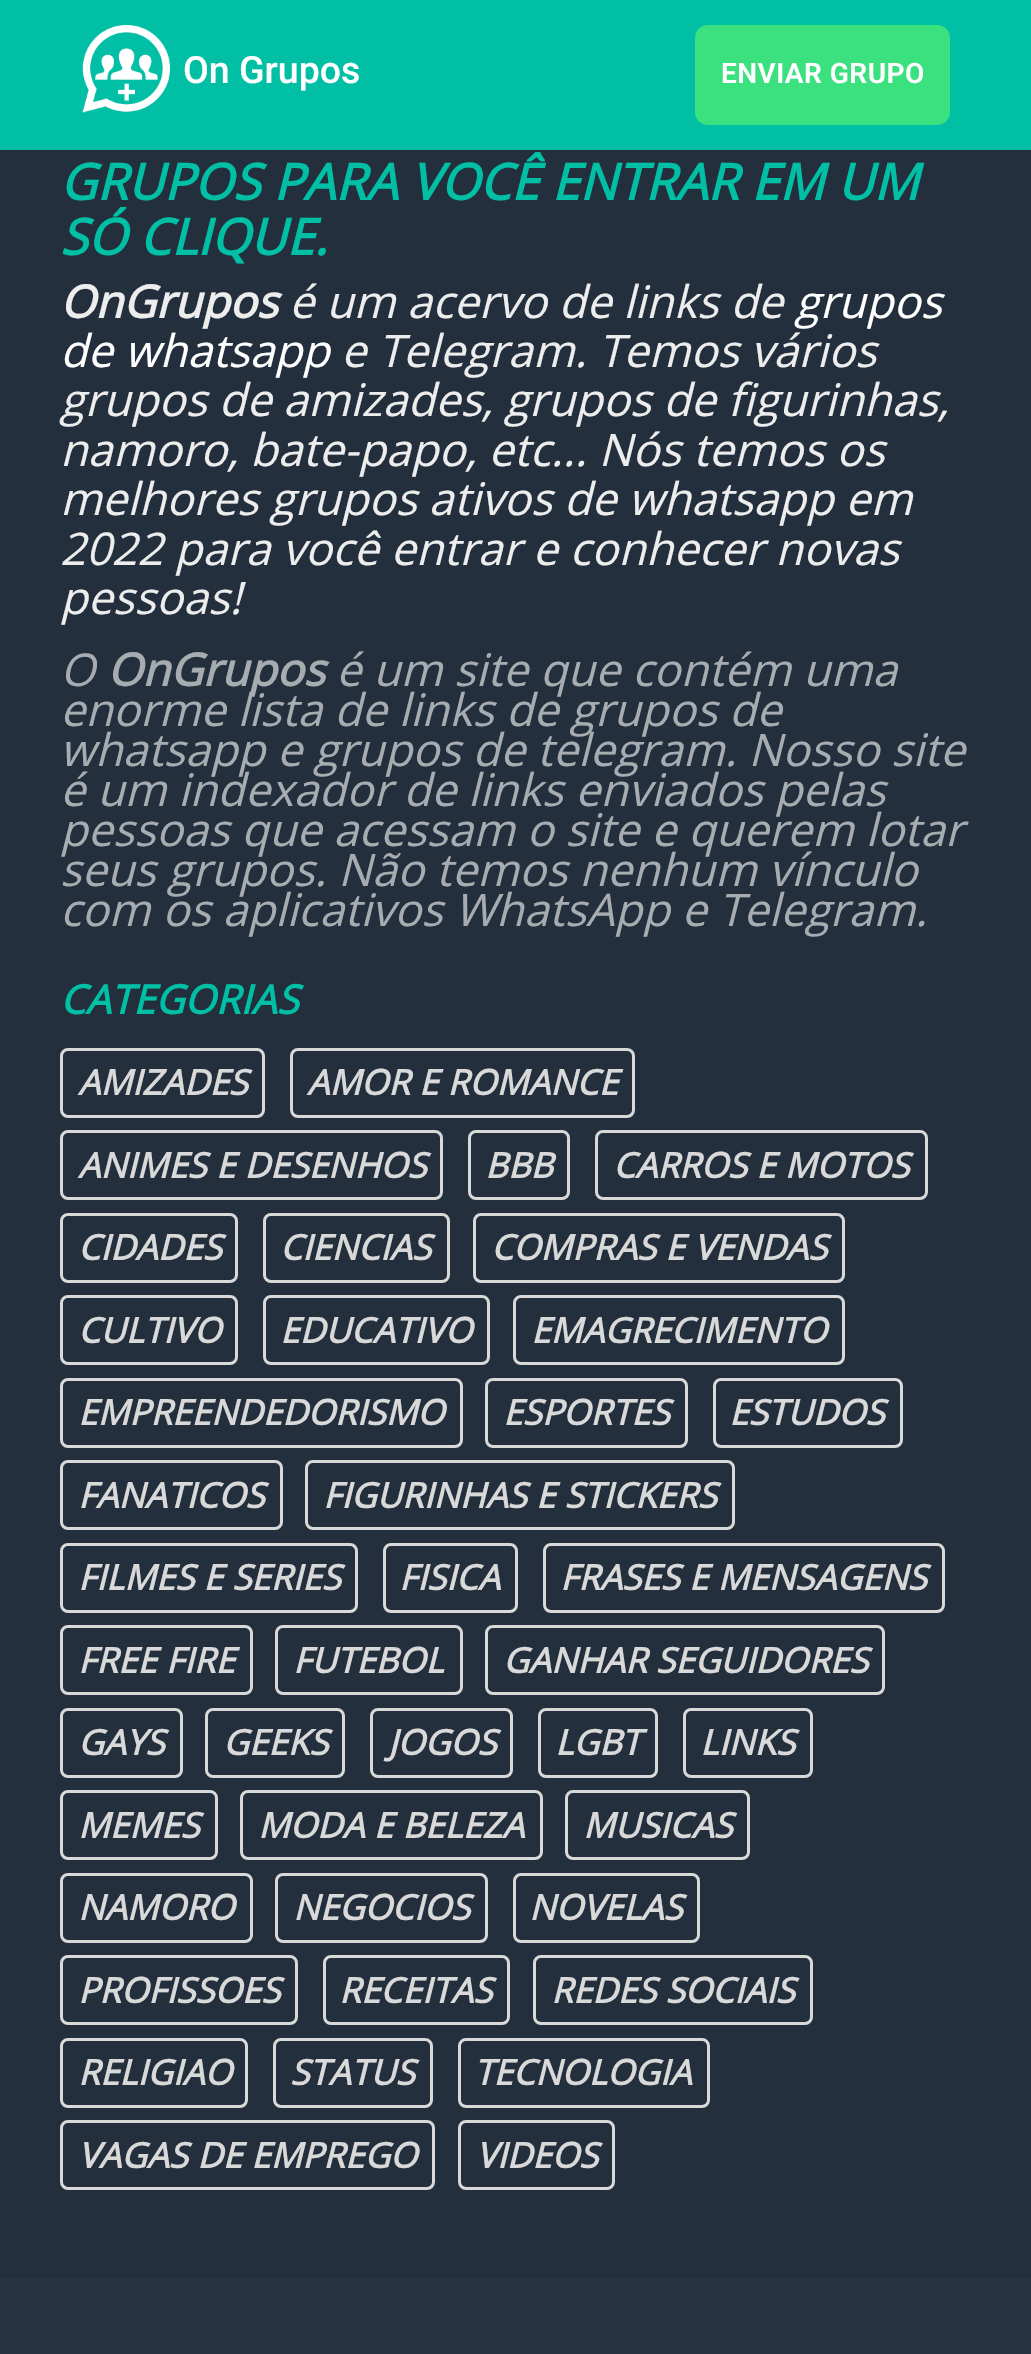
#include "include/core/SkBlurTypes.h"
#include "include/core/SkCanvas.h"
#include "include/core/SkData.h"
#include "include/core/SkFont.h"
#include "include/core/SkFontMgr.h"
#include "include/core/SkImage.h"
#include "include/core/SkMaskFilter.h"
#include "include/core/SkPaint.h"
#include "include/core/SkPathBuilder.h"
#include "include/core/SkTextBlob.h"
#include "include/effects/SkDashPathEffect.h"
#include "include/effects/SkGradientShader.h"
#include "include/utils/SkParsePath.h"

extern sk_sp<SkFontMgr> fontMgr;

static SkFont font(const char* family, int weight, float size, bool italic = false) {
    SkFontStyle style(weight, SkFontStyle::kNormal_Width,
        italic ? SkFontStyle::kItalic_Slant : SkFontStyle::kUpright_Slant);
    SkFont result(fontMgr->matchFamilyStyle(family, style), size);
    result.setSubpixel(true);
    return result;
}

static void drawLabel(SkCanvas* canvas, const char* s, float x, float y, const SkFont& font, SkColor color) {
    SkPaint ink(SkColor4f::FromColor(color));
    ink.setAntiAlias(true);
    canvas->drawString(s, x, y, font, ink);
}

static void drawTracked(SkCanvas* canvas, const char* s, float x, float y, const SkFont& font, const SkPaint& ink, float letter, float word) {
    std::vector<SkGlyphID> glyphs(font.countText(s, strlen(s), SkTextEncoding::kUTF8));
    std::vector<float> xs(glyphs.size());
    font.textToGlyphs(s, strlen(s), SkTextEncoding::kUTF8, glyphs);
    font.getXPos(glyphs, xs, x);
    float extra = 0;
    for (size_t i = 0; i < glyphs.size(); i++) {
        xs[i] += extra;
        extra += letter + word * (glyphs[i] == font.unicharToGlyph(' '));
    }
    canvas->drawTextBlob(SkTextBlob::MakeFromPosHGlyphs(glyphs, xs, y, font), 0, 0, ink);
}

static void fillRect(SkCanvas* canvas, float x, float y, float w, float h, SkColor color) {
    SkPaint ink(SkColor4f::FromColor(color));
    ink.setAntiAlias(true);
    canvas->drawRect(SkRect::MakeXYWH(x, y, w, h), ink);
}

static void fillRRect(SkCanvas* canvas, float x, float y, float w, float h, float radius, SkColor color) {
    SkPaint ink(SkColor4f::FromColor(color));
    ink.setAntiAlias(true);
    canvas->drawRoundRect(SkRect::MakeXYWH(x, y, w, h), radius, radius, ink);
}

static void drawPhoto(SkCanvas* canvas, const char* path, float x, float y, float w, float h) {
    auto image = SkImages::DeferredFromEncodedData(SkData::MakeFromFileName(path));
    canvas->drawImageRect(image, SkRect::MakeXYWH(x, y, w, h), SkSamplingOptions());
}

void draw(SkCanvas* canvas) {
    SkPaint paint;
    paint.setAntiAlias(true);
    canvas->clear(0xFF232F3C);
    fillRect(canvas, 0, 0, 1031, 150, 0xFF00BFA5);
    drawPhoto(canvas, "assets/img1.png", 82, 25, 88, 88);
    SkFont font1 = font("Roboto", 500, 37.5f);
    drawLabel(canvas, "On Grupos", 183, 83, font1, 0xFFFFFFFF);
    fillRRect(canvas, 695, 25, 255, 100, 13, 0xFF3BE17F);
    SkFont font2 = font("Roboto", 600, 28);
    paint.setColor(0xFFFFFFFF);
    drawTracked(canvas, "ENVIAR GRUPO", 721, 83, font2, paint, 0.5f, 0);
    SkFont font3 = font("Open Sans", 700, 50, true);
    drawLabel(canvas, "GRUPOS PARA VOCÊ ENTRAR EM UM", 60, 200, font3, 0xFF00BFA5);
    drawLabel(canvas, "SÓ CLIQUE.", 60, 255, font3, 0xFF00BFA5);
    SkFont font4 = font("Open Sans", 700, 45, true);
    drawLabel(canvas, "OnGrupos", 60, 318, font4, 0xFFEDEDED);
    SkFont font5 = font("Open Sans", 400, 45, true);
    drawLabel(canvas, "é um acervo de links de", 289, 318, font5, 0xFFEDEDED);
    drawLabel(canvas, "grupos", 795, 318, font5, 0xFFFFFFFF);
    drawLabel(canvas, "de whatsapp", 60, 367, font5, 0xFFFFFFFF);
    drawLabel(canvas, "e Telegram. Temos vários", 341, 367, font5, 0xFFEDEDED);
    drawLabel(canvas, "grupos de amizades, grupos de figurinhas,", 60, 416, font5, 0xFFEDEDED);
    drawLabel(canvas, "namoro, bate-papo, etc... Nós temos os", 60, 466, font5, 0xFFEDEDED);
    drawLabel(canvas, "melhores grupos ativos de whatsapp em", 60, 515, font5, 0xFFEDEDED);
    drawLabel(canvas, "2022 para você entrar e conhecer novas", 60, 565, font5, 0xFFEDEDED);
    drawLabel(canvas, "pessoas!", 60, 614, font5, 0xFFEDEDED);
    drawLabel(canvas, "O", 60, 686, font5, 0xFFA7ACB1);
    drawLabel(canvas, "OnGrupos", 107, 686, font4, 0xFFA7ACB1);
    drawLabel(canvas, "é um site que contém uma", 336, 686, font5, 0xFFA7ACB1);
    drawLabel(canvas, "enorme lista de links de grupos de", 60, 726, font5, 0xFFA7ACB1);
    drawLabel(canvas, "whatsapp e grupos de telegram. Nosso site", 60, 766, font5, 0xFFA7ACB1);
    drawLabel(canvas, "é um indexador de links enviados pelas", 60, 806, font5, 0xFFA7ACB1);
    drawLabel(canvas, "pessoas que acessam o site e querem lotar", 60, 846, font5, 0xFFA7ACB1);
    drawLabel(canvas, "seus grupos. Não temos nenhum vínculo", 60, 886, font5, 0xFFA7ACB1);
    drawLabel(canvas, "com os aplicativos WhatsApp e Telegram.", 60, 926, font5, 0xFFA7ACB1);
    SkFont font6 = font("Open Sans", 700, 40, true);
    drawLabel(canvas, "CATEGORIAS", 60, 1014, font6, 0xFF00BFA5);
    paint.setStroke(true);
    paint.setStrokeWidth(3);
    paint.setColor(0xFFD9D9D9);
    canvas->drawRoundRect(SkRect::MakeXYWH(61.5f, 1049.5f, 202, 67), 6.5f, 6.5f, paint);
    SkFont font7 = font("Open Sans", 700, 35, true);
    drawLabel(canvas, "AMIZADES", 78, 1095, font7, 0xFFD9D9D9);
    canvas->drawRoundRect(SkRect::MakeXYWH(291.5f, 1049.5f, 342, 67), 6.5f, 6.5f, paint);
    drawLabel(canvas, "AMOR E ROMANCE", 307, 1095, font7, 0xFFD9D9D9);
    canvas->drawRoundRect(SkRect::MakeXYWH(61.5f, 1131.5f, 380, 67), 6.5f, 6.5f, paint);
    drawLabel(canvas, "ANIMES E DESENHOS", 78, 1178, font7, 0xFFD9D9D9);
    canvas->drawRoundRect(SkRect::MakeXYWH(469.5f, 1131.5f, 99, 67), 6.5f, 6.5f, paint);
    drawLabel(canvas, "BBB", 485, 1178, font7, 0xFFD9D9D9);
    canvas->drawRoundRect(SkRect::MakeXYWH(596.5f, 1131.5f, 330, 67), 6.5f, 6.5f, paint);
    drawLabel(canvas, "CARROS E MOTOS", 613, 1178, font7, 0xFFD9D9D9);
    canvas->drawRoundRect(SkRect::MakeXYWH(61.5f, 1214.5f, 175, 67), 6.5f, 6.5f, paint);
    drawLabel(canvas, "CIDADES", 78, 1260, font7, 0xFFD9D9D9);
    canvas->drawRoundRect(SkRect::MakeXYWH(264.5f, 1214.5f, 184, 67), 6.5f, 6.5f, paint);
    drawLabel(canvas, "CIENCIAS", 280, 1260, font7, 0xFFD9D9D9);
    canvas->drawRoundRect(SkRect::MakeXYWH(474.5f, 1214.5f, 369, 67), 6.5f, 6.5f, paint);
    drawLabel(canvas, "COMPRAS E VENDAS", 491, 1260, font7, 0xFFD9D9D9);
    canvas->drawRoundRect(SkRect::MakeXYWH(61.5f, 1296.5f, 175, 67), 6.5f, 6.5f, paint);
    drawLabel(canvas, "CULTIVO", 78, 1343, font7, 0xFFD9D9D9);
    canvas->drawRoundRect(SkRect::MakeXYWH(264.5f, 1296.5f, 224, 67), 6.5f, 6.5f, paint);
    drawLabel(canvas, "EDUCATIVO", 280, 1343, font7, 0xFFD9D9D9);
    canvas->drawRoundRect(SkRect::MakeXYWH(514.5f, 1296.5f, 329, 67), 6.5f, 6.5f, paint);
    drawLabel(canvas, "EMAGRECIMENTO", 531, 1343, font7, 0xFFD9D9D9);
    canvas->drawRoundRect(SkRect::MakeXYWH(61.5f, 1379.5f, 400, 67), 6.5f, 6.5f, paint);
    drawLabel(canvas, "EMPREENDEDORISMO", 78, 1425, font7, 0xFFD9D9D9);
    canvas->drawRoundRect(SkRect::MakeXYWH(486.5f, 1379.5f, 200, 67), 6.5f, 6.5f, paint);
    drawLabel(canvas, "ESPORTES", 503, 1425, font7, 0xFFD9D9D9);
    canvas->drawRoundRect(SkRect::MakeXYWH(714.5f, 1379.5f, 187, 67), 6.5f, 6.5f, paint);
    drawLabel(canvas, "ESTUDOS", 729, 1425, font7, 0xFFD9D9D9);
    canvas->drawRoundRect(SkRect::MakeXYWH(61.5f, 1461.5f, 220, 67), 6.5f, 6.5f, paint);
    drawLabel(canvas, "FANATICOS", 78, 1508, font7, 0xFFD9D9D9);
    canvas->drawRoundRect(SkRect::MakeXYWH(306.5f, 1461.5f, 427, 67), 6.5f, 6.5f, paint);
    drawLabel(canvas, "FIGURINHAS E STICKERS", 323, 1508, font7, 0xFFD9D9D9);
    canvas->drawRoundRect(SkRect::MakeXYWH(61.5f, 1544.5f, 295, 67), 6.5f, 6.5f, paint);
    drawLabel(canvas, "FILMES E SERIES", 78, 1590, font7, 0xFFD9D9D9);
    canvas->drawRoundRect(SkRect::MakeXYWH(384.5f, 1544.5f, 132, 67), 6.5f, 6.5f, paint);
    drawLabel(canvas, "FISICA", 399, 1590, font7, 0xFFD9D9D9);
    canvas->drawRoundRect(SkRect::MakeXYWH(544.5f, 1544.5f, 399, 67), 6.5f, 6.5f, paint);
    drawLabel(canvas, "FRASES E MENSAGENS", 560, 1590, font7, 0xFFD9D9D9);
    canvas->drawRoundRect(SkRect::MakeXYWH(61.5f, 1626.5f, 190, 67), 6.5f, 6.5f, paint);
    drawLabel(canvas, "FREE FIRE", 78, 1673, font7, 0xFFD9D9D9);
    canvas->drawRoundRect(SkRect::MakeXYWH(276.5f, 1626.5f, 185, 67), 6.5f, 6.5f, paint);
    drawLabel(canvas, "FUTEBOL", 293, 1673, font7, 0xFFD9D9D9);
    canvas->drawRoundRect(SkRect::MakeXYWH(486.5f, 1626.5f, 397, 67), 6.5f, 6.5f, paint);
    drawLabel(canvas, "GANHAR SEGUIDORES", 503, 1673, font7, 0xFFD9D9D9);
    canvas->drawRoundRect(SkRect::MakeXYWH(61.5f, 1709.5f, 120, 67), 6.5f, 6.5f, paint);
    drawLabel(canvas, "GAYS", 78, 1755, font7, 0xFFD9D9D9);
    canvas->drawRoundRect(SkRect::MakeXYWH(206.5f, 1709.5f, 137, 67), 6.5f, 6.5f, paint);
    drawLabel(canvas, "GEEKS", 223, 1755, font7, 0xFFD9D9D9);
    canvas->drawRoundRect(SkRect::MakeXYWH(371.5f, 1709.5f, 140, 67), 6.5f, 6.5f, paint);
    drawLabel(canvas, "JOGOS", 388, 1755, font7, 0xFFD9D9D9);
    canvas->drawRoundRect(SkRect::MakeXYWH(539.5f, 1709.5f, 117, 67), 6.5f, 6.5f, paint);
    drawLabel(canvas, "LGBT", 555, 1755, font7, 0xFFD9D9D9);
    canvas->drawRoundRect(SkRect::MakeXYWH(684.5f, 1709.5f, 127, 67), 6.5f, 6.5f, paint);
    drawLabel(canvas, "LINKS", 700, 1755, font7, 0xFFD9D9D9);
    canvas->drawRoundRect(SkRect::MakeXYWH(61.5f, 1791.5f, 155, 67), 6.5f, 6.5f, paint);
    drawLabel(canvas, "MEMES", 78, 1838, font7, 0xFFD9D9D9);
    canvas->drawRoundRect(SkRect::MakeXYWH(241.5f, 1791.5f, 300, 67), 6.5f, 6.5f, paint);
    drawLabel(canvas, "MODA E BELEZA", 258, 1838, font7, 0xFFD9D9D9);
    canvas->drawRoundRect(SkRect::MakeXYWH(566.5f, 1791.5f, 182, 67), 6.5f, 6.5f, paint);
    drawLabel(canvas, "MUSICAS", 583, 1838, font7, 0xFFD9D9D9);
    canvas->drawRoundRect(SkRect::MakeXYWH(61.5f, 1874.5f, 190, 67), 6.5f, 6.5f, paint);
    drawLabel(canvas, "NAMORO", 78, 1920, font7, 0xFFD9D9D9);
    canvas->drawRoundRect(SkRect::MakeXYWH(276.5f, 1874.5f, 210, 67), 6.5f, 6.5f, paint);
    drawLabel(canvas, "NEGOCIOS", 293, 1920, font7, 0xFFD9D9D9);
    canvas->drawRoundRect(SkRect::MakeXYWH(514.5f, 1874.5f, 184, 67), 6.5f, 6.5f, paint);
    drawLabel(canvas, "NOVELAS", 529, 1920, font7, 0xFFD9D9D9);
    canvas->drawRoundRect(SkRect::MakeXYWH(61.5f, 1956.5f, 235, 67), 6.5f, 6.5f, paint);
    drawLabel(canvas, "PROFISSOES", 78, 2003, font7, 0xFFD9D9D9);
    canvas->drawRoundRect(SkRect::MakeXYWH(324.5f, 1956.5f, 184, 67), 6.5f, 6.5f, paint);
    drawLabel(canvas, "RECEITAS", 339, 2003, font7, 0xFFD9D9D9);
    canvas->drawRoundRect(SkRect::MakeXYWH(534.5f, 1956.5f, 277, 67), 6.5f, 6.5f, paint);
    drawLabel(canvas, "REDES SOCIAIS", 551, 2003, font7, 0xFFD9D9D9);
    canvas->drawRoundRect(SkRect::MakeXYWH(61.5f, 2039.5f, 185, 67), 6.5f, 6.5f, paint);
    drawLabel(canvas, "RELIGIAO", 78, 2085, font7, 0xFFD9D9D9);
    canvas->drawRoundRect(SkRect::MakeXYWH(274.5f, 2039.5f, 157, 67), 6.5f, 6.5f, paint);
    drawLabel(canvas, "STATUS", 290, 2085, font7, 0xFFD9D9D9);
    canvas->drawRoundRect(SkRect::MakeXYWH(459.5f, 2039.5f, 249, 67), 6.5f, 6.5f, paint);
    drawLabel(canvas, "TECNOLOGIA", 474, 2085, font7, 0xFFD9D9D9);
    canvas->drawRoundRect(SkRect::MakeXYWH(61.5f, 2121.5f, 372, 67), 6.5f, 6.5f, paint);
    drawLabel(canvas, "VAGAS DE EMPREGO", 78, 2168, font7, 0xFFD9D9D9);
    canvas->drawRoundRect(SkRect::MakeXYWH(459.5f, 2121.5f, 154, 67), 6.5f, 6.5f, paint);
    drawLabel(canvas, "VIDEOS", 476, 2168, font7, 0xFFD9D9D9);
    fillRect(canvas, 0, 2278, 1031, 76, 0xFF273443);
}
